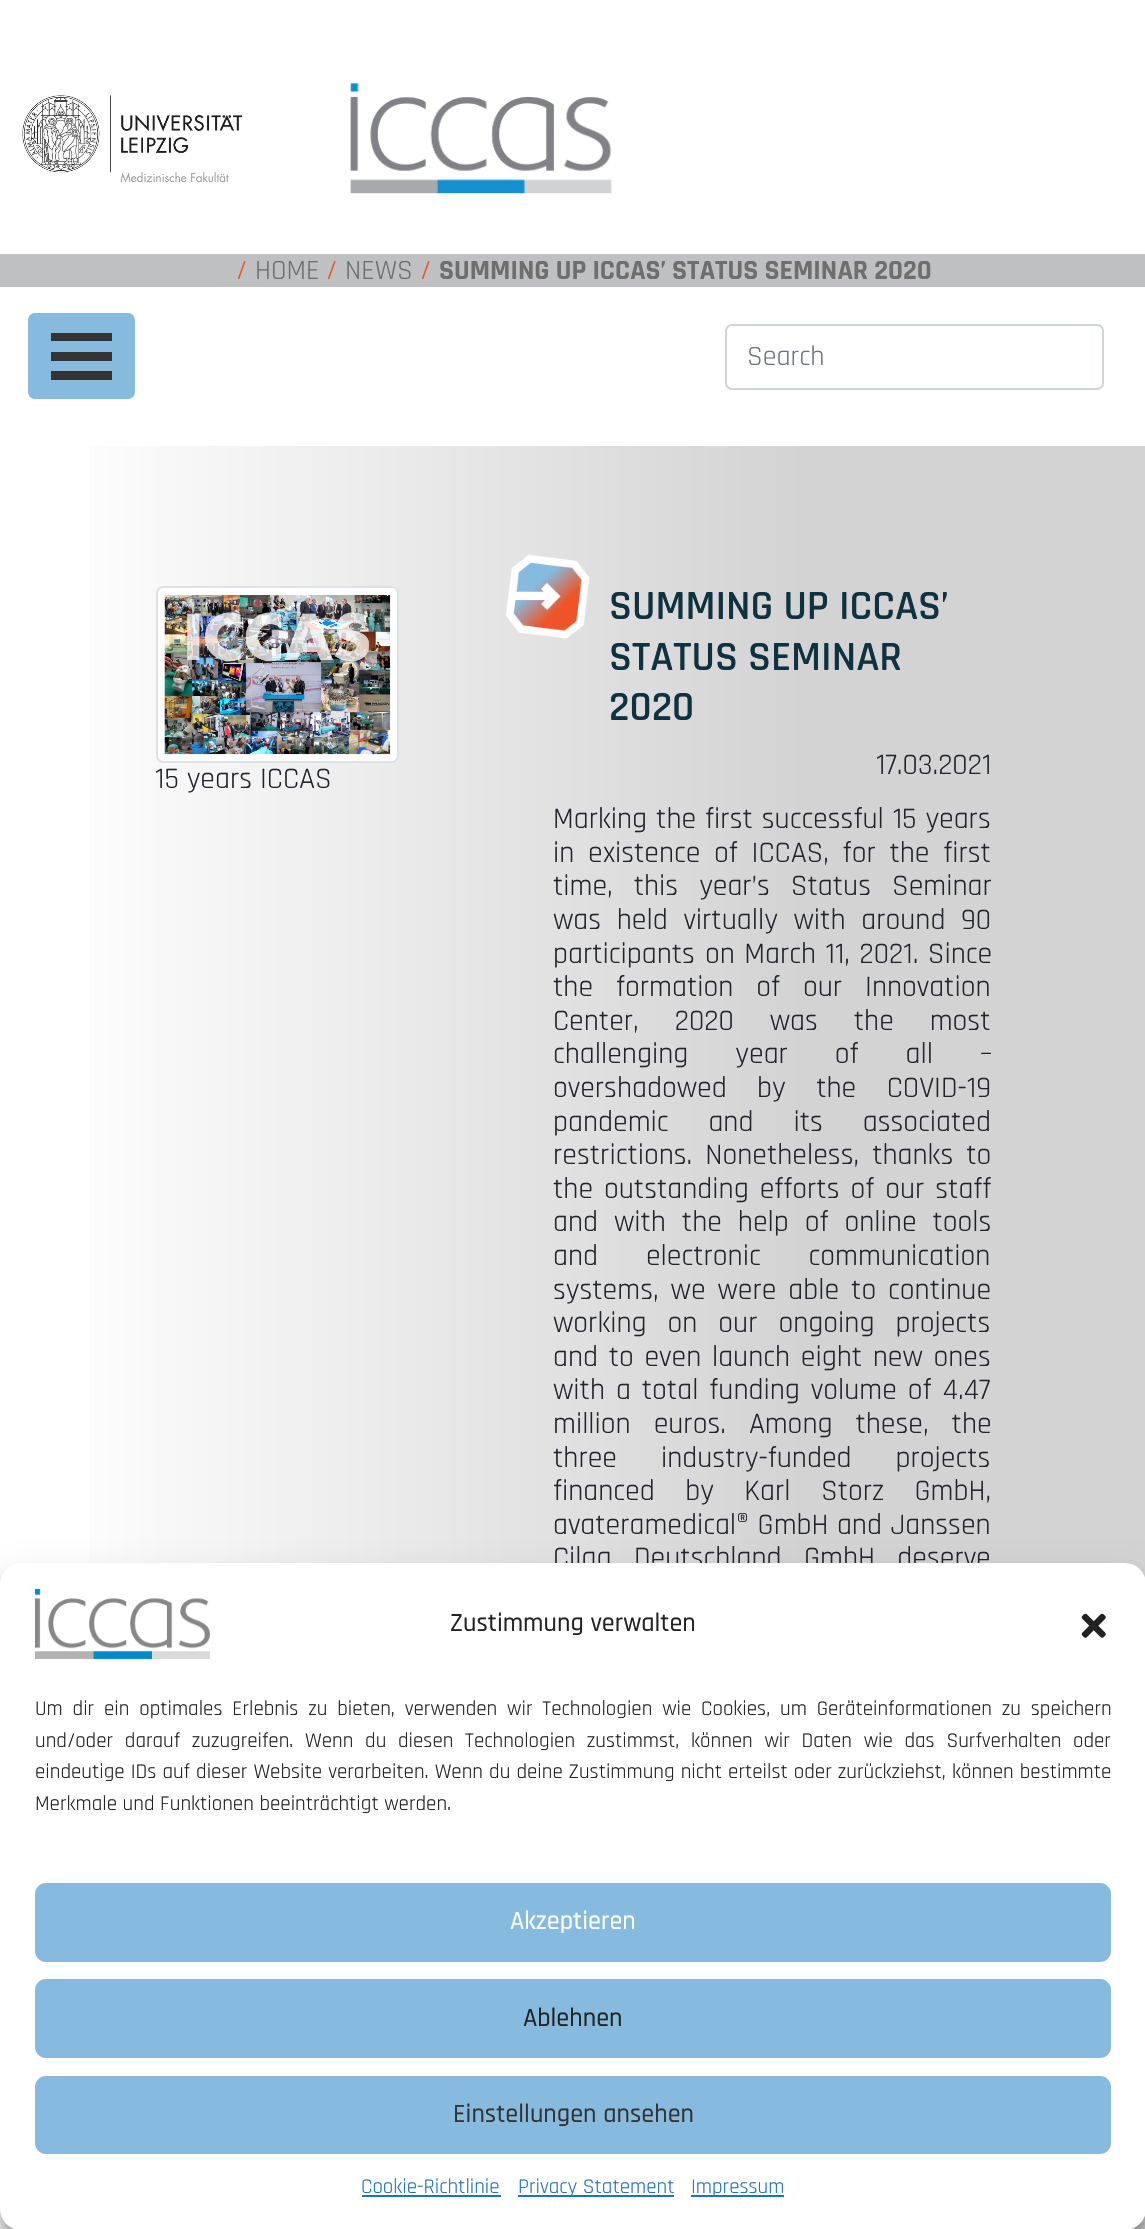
#include "include/core/SkBlurTypes.h"
#include "include/core/SkCanvas.h"
#include "include/core/SkData.h"
#include "include/core/SkFont.h"
#include "include/core/SkFontMgr.h"
#include "include/core/SkImage.h"
#include "include/core/SkMaskFilter.h"
#include "include/core/SkPaint.h"
#include "include/core/SkPathBuilder.h"
#include "include/core/SkTextBlob.h"
#include "include/effects/SkDashPathEffect.h"
#include "include/effects/SkGradientShader.h"
#include "include/utils/SkParsePath.h"

extern sk_sp<SkFontMgr> fontMgr;

static SkFont font(const char* family, int weight, float size, bool italic = false) {
    SkFontStyle style(weight, SkFontStyle::kNormal_Width,
        italic ? SkFontStyle::kItalic_Slant : SkFontStyle::kUpright_Slant);
    SkFont result(fontMgr->matchFamilyStyle(family, style), size);
    result.setSubpixel(true);
    return result;
}

static void drawLabel(SkCanvas* canvas, const char* s, float x, float y, const SkFont& font, SkColor color) {
    SkPaint ink(SkColor4f::FromColor(color));
    ink.setAntiAlias(true);
    canvas->drawString(s, x, y, font, ink);
}

static void drawTracked(SkCanvas* canvas, const char* s, float x, float y, const SkFont& font, const SkPaint& ink, float letter, float word) {
    std::vector<SkGlyphID> glyphs(font.countText(s, strlen(s), SkTextEncoding::kUTF8));
    std::vector<float> xs(glyphs.size());
    font.textToGlyphs(s, strlen(s), SkTextEncoding::kUTF8, glyphs);
    font.getXPos(glyphs, xs, x);
    float extra = 0;
    for (size_t i = 0; i < glyphs.size(); i++) {
        xs[i] += extra;
        extra += letter + word * (glyphs[i] == font.unicharToGlyph(' '));
    }
    canvas->drawTextBlob(SkTextBlob::MakeFromPosHGlyphs(glyphs, xs, y, font), 0, 0, ink);
}

static void fillRect(SkCanvas* canvas, float x, float y, float w, float h, SkColor color) {
    SkPaint ink(SkColor4f::FromColor(color));
    ink.setAntiAlias(true);
    canvas->drawRect(SkRect::MakeXYWH(x, y, w, h), ink);
}

static void fillRRect(SkCanvas* canvas, float x, float y, float w, float h, float radius, SkColor color) {
    SkPaint ink(SkColor4f::FromColor(color));
    ink.setAntiAlias(true);
    canvas->drawRoundRect(SkRect::MakeXYWH(x, y, w, h), radius, radius, ink);
}

static void drawPhoto(SkCanvas* canvas, const char* path, float x, float y, float w, float h) {
    auto image = SkImages::DeferredFromEncodedData(SkData::MakeFromFileName(path));
    canvas->drawImageRect(image, SkRect::MakeXYWH(x, y, w, h), SkSamplingOptions());
}

void draw(SkCanvas* canvas) {
    SkPaint paint;
    paint.setAntiAlias(true);
    canvas->clear(0xFFFFFFFF);
    drawPhoto(canvas, "assets/img1.png", 22, 95, 220, 88);
    drawPhoto(canvas, "assets/img2.png", 350, 83, 262, 111);
    fillRect(canvas, 0, 254, 1145, 33, 0xFFBFC0C1);
    SkFont font1 = font("Rajdhani", 400, 28);
    drawLabel(canvas, "/", 236, 279, font1, 0xFFEE5427);
    drawLabel(canvas, "HOME", 255, 279, font1, 0xFF6F6E6F);
    drawLabel(canvas, "/", 326, 279, font1, 0xFFEE5427);
    drawLabel(canvas, "NEWS", 345, 279, font1, 0xFF6F6E6F);
    drawLabel(canvas, "/", 420, 279, font1, 0xFFEE5427);
    SkFont font2 = font("Rajdhani", 700, 28);
    drawLabel(canvas, "SUMMING UP ICCAS’ STATUS SEMINAR 2020", 439, 279, font2, 0xFF6F6E6F);
    paint.setColor(0xFF86BBDF);
    canvas->drawRoundRect(SkRect::MakeXYWH(29, 314, 105, 84), 6, 6, paint);
    paint.setStroke(true);
    paint.setStrokeWidth(2);
    canvas->drawRoundRect(SkRect::MakeXYWH(29, 314, 105, 84), 6, 6, paint);
    fillRect(canvas, 51, 333, 61, 8, 0xFF333333);
    fillRect(canvas, 51, 352, 61, 9, 0xFF333333);
    fillRect(canvas, 51, 371, 61, 9, 0xFF333333);
    paint.setColor(0xFFCED4DA);
    canvas->drawRoundRect(SkRect::MakeXYWH(726, 325, 377, 64), 6, 6, paint);
    drawLabel(canvas, "Search", 747, 365, font1, 0xFF6C757D);
    paint.setStroke(false);
    {
        const SkColor colors[] = {0xFFFFFFFF, 0xFFD3D3D3};
        const float stops[] = {0.04f, 0.7f};
        const SkPoint ends[] = {{0, 1455}, {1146, 1455}};
        paint.setShader(SkGradientShader::MakeLinear(ends, colors, stops, 2, SkTileMode::kClamp));
        paint.setAlpha(255);
    }
    canvas->drawRect(SkRect::MakeXYWH(89, 446, 1056, 1783), paint);
    paint.setShader(nullptr);
    paint.setColor(0xFFFFFFFF);
    canvas->drawRoundRect(SkRect::MakeXYWH(157, 587, 241, 175), 6, 6, paint);
    paint.setStroke(true);
    paint.setColor(0xFFDEE2E6);
    canvas->drawRoundRect(SkRect::MakeXYWH(157, 587, 241, 175), 6, 6, paint);
    drawPhoto(canvas, "assets/img3.png", 164, 595, 227, 160);
    SkFont font3 = font("Rajdhani", 400, 29.75f);
    drawLabel(canvas, "15 years ICCAS", 155, 788, font3, 0xFF212529);
    drawPhoto(canvas, "assets/img4.png", 505, 554, 85, 85);
    SkFont font4 = font("Rajdhani", 600, 42);
    drawLabel(canvas, "SUMMING UP ICCAS’", 609, 619, font4, 0xFF0E323E);
    drawLabel(canvas, "STATUS SEMINAR", 609, 670, font4, 0xFF0E323E);
    drawLabel(canvas, "2020", 609, 720, font4, 0xFF0E323E);
    drawLabel(canvas, "17.03.2021", 876, 774, font3, 0xFF212529);
    paint.setStroke(false);
    paint.setColor(0xFF212529);
    drawTracked(canvas, "Marking the first successful 15 years", 553, 828, font3, paint, 0, 1);
    drawTracked(canvas, "in existence of ICCAS, for the first", 553, 862, font3, paint, 0, 5.75f);
    drawTracked(canvas, "time, this year’s Status Seminar", 553, 895, font3, paint, 0, 13);
    drawTracked(canvas, "was held virtually with around 90", 553, 929, font3, paint, 0, 7.75f);
    drawLabel(canvas, "participants", 553, 963, font3, 0xFF212529);
    drawTracked(canvas, "on March 11, 2021. Since", 705, 963, font3, paint, 0, 1.5f);
    drawTracked(canvas, "the formation of our Innovation", 553, 996, font3, paint, 0, 15);
    drawTracked(canvas, "Center, 2020 was the most", 553, 1030, font3, paint, 0, 28);
    drawTracked(canvas, "challenging year of all –", 553, 1063, font3, paint, 0, 39);
    drawTracked(canvas, "overshadowed by the COVID-19", 553, 1097, font3, paint, 0, 22.5f);
    drawTracked(canvas, "pandemic and its associated", 553, 1131, font3, paint, 0, 32);
    drawTracked(canvas, "restrictions. Nonetheless, thanks to", 553, 1164, font3, paint, 0, 5);
    drawTracked(canvas, "the outstanding efforts of our staff", 553, 1198, font3, paint, 0, 3);
    drawTracked(canvas, "and with the help of online tools", 553, 1231, font3, paint, 0, 8);
    drawTracked(canvas, "and electronic communication", 553, 1265, font3, paint, 0, 40);
    drawTracked(canvas, "systems, we were able to continue", 553, 1299, font3, paint, 0, 4);
    drawTracked(canvas, "working on our ongoing projects", 553, 1332, font3, paint, 0, 13);
    drawTracked(canvas, "and to even launch eight new ones", 553, 1366, font3, paint, 0, 2.75f);
    drawTracked(canvas, "with a total funding volume of 4.47", 553, 1399, font3, paint, 0, 3);
    drawTracked(canvas, "million euros. Among these, the", 553, 1433, font3, paint, 0, 15);
    drawTracked(canvas, "three industry-funded projects", 553, 1467, font3, paint, 0, 36);
    drawTracked(canvas, "financed by Karl Storz GmbH,", 553, 1500, font3, paint, 0, 22.5f);
    drawTracked(canvas, "avateramedical® GmbH and Janssen", 553, 1534, font3, paint, 0, 0.5f);
    drawTracked(canvas, "Cilag Deutschland GmbH deserve", 553, 1567, font3, paint, 0, 14.5f);
    paint.setColor(0x3B000000);
    paint.setMaskFilter(SkMaskFilter::MakeBlur(kNormal_SkBlurStyle, 5));
    canvas->drawRoundRect(SkRect::MakeXYWH(0, 1573, 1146, 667), 21, 21, paint);
    paint.setMaskFilter(nullptr);
    paint.setColor(0x30000000);
    paint.setMaskFilter(SkMaskFilter::MakeBlur(kNormal_SkBlurStyle, 17.5f));
    canvas->drawRoundRect(SkRect::MakeXYWH(0, 1580, 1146, 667), 21, 21, paint);
    paint.setMaskFilter(nullptr);
    fillRRect(canvas, 0, 1563, 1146, 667, 21, 0xFFFFFFFF);
    drawPhoto(canvas, "assets/img5.png", 35, 1589, 175, 70);
    SkFont font5 = font("Rajdhani", 500, 26.25f);
    drawLabel(canvas, "Zustimmung verwalten", 450, 1631, font5, 0xFF222222);
    drawPhoto(canvas, "assets/img6.png", 1081, 1613, 25, 25);
    SkFont font6 = font("Rajdhani", 400, 21);
    paint.setColor(0xFF222222);
    drawTracked(canvas, "Um dir ein optimales Erlebnis zu bieten, verwenden wir Technologien wie Cookies, um Geräteinformationen zu speichern", 35, 1715, font6, paint, 0, 4.25f);
    drawTracked(canvas, "und/oder darauf zuzugreifen. Wenn du diesen Technologien zustimmst, können wir Daten wie das Surfverhalten oder", 35, 1747, font6, paint, 0, 6.1f);
    drawTracked(canvas, "eindeutige IDs auf dieser Website verarbeiten. Wenn du deine Zustimmung nicht erteilst oder zurückziehst, können bestimmte", 35, 1778, font6, paint, 0, 0.5f);
    drawLabel(canvas, "Merkmale und Funktionen beeinträchtigt werden.", 35, 1810, font6, 0xFF222222);
    paint.setColor(0xFF86BBDF);
    canvas->drawRoundRect(SkRect::MakeXYWH(36, 1884, 1074, 77), 10, 10, paint);
    paint.setStroke(true);
    canvas->drawRoundRect(SkRect::MakeXYWH(36, 1884, 1074, 77), 10, 10, paint);
    drawLabel(canvas, "Akzeptieren", 510, 1929, font5, 0xFFFFFFFF);
    paint.setStroke(false);
    canvas->drawRoundRect(SkRect::MakeXYWH(36, 1980, 1074, 77), 10, 10, paint);
    paint.setStroke(true);
    canvas->drawRoundRect(SkRect::MakeXYWH(36, 1980, 1074, 77), 10, 10, paint);
    drawLabel(canvas, "Ablehnen", 523, 2026, font5, 0xFF222222);
    paint.setStroke(false);
    canvas->drawRoundRect(SkRect::MakeXYWH(36, 2077, 1074, 76), 10, 10, paint);
    paint.setStroke(true);
    canvas->drawRoundRect(SkRect::MakeXYWH(36, 2077, 1074, 76), 10, 10, paint);
    drawLabel(canvas, "Einstellungen ansehen", 453, 2122, font5, 0xFF333333);
    drawLabel(canvas, "Cookie-Richtlinie", 361, 2193, font6, 0xFF1E73BE);
    fillRect(canvas, 362, 2195, 139, 2, 0xFF1E73BE);
    fillRect(canvas, 518, 2195, 156, 2, 0xFF1E73BE);
    drawLabel(canvas, "Privacy Statement", 518, 2193, font6, 0xFF1E73BE);
    fillRect(canvas, 691, 2195, 93, 2, 0xFF1E73BE);
    drawLabel(canvas, "Impressum", 691, 2193, font6, 0xFF1E73BE);
}
